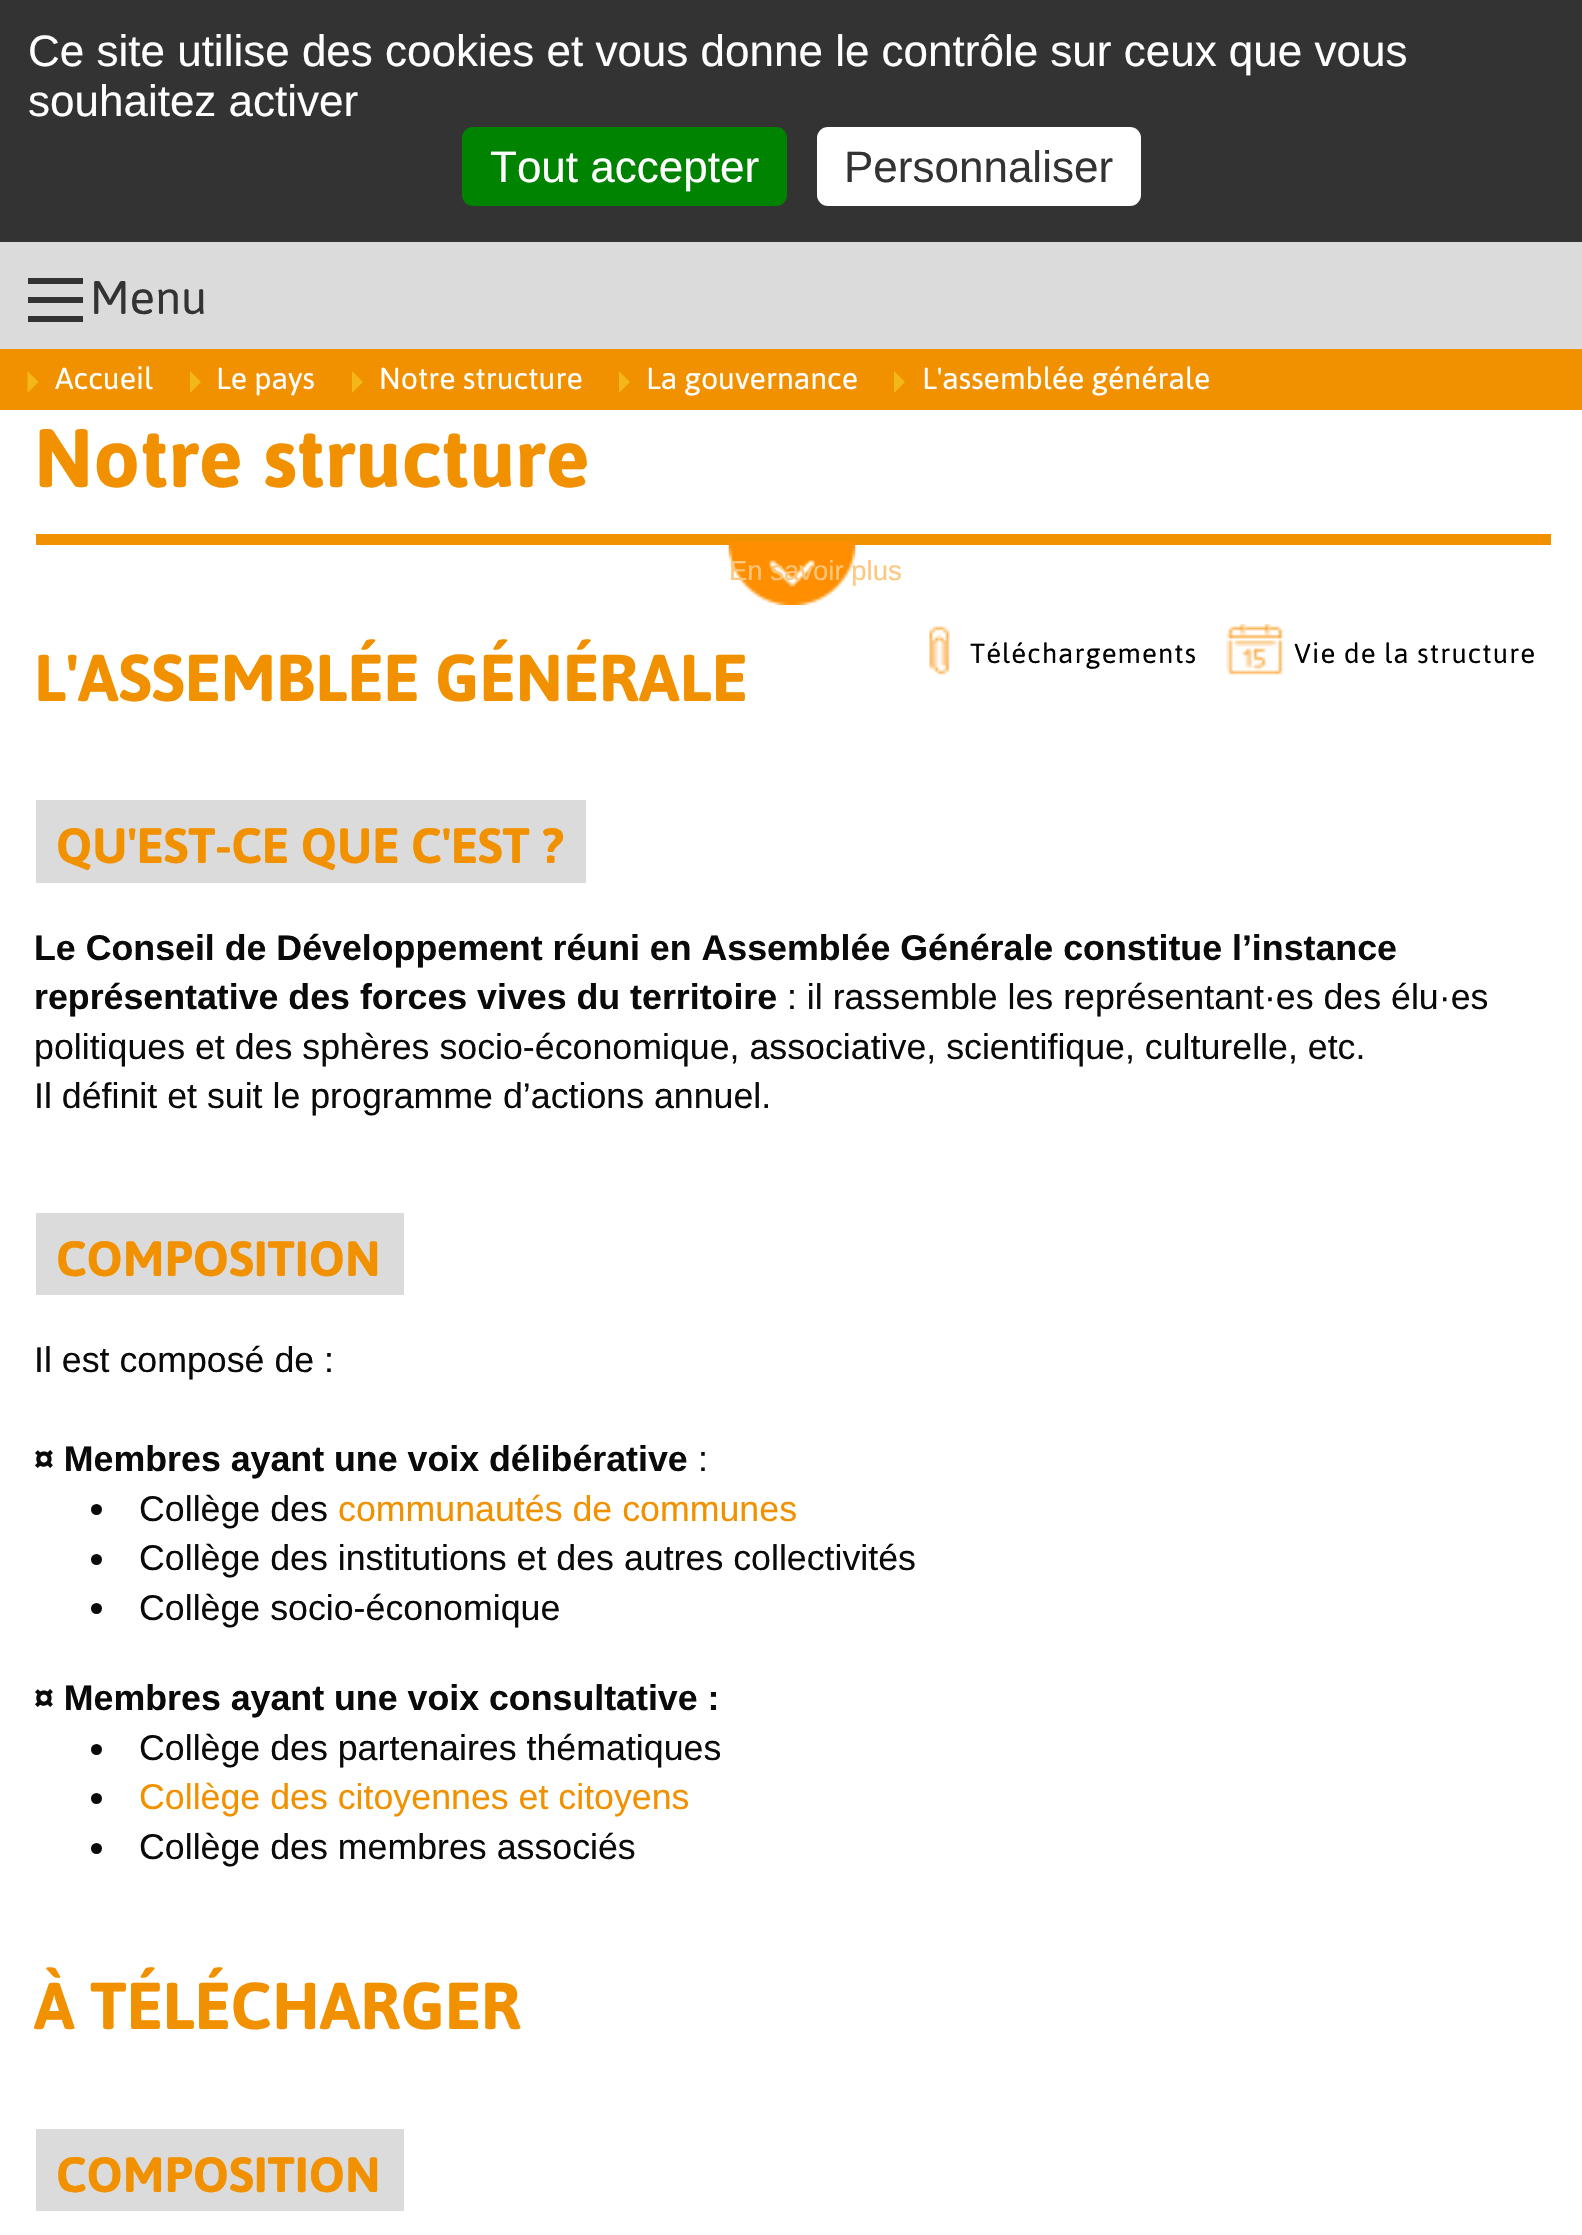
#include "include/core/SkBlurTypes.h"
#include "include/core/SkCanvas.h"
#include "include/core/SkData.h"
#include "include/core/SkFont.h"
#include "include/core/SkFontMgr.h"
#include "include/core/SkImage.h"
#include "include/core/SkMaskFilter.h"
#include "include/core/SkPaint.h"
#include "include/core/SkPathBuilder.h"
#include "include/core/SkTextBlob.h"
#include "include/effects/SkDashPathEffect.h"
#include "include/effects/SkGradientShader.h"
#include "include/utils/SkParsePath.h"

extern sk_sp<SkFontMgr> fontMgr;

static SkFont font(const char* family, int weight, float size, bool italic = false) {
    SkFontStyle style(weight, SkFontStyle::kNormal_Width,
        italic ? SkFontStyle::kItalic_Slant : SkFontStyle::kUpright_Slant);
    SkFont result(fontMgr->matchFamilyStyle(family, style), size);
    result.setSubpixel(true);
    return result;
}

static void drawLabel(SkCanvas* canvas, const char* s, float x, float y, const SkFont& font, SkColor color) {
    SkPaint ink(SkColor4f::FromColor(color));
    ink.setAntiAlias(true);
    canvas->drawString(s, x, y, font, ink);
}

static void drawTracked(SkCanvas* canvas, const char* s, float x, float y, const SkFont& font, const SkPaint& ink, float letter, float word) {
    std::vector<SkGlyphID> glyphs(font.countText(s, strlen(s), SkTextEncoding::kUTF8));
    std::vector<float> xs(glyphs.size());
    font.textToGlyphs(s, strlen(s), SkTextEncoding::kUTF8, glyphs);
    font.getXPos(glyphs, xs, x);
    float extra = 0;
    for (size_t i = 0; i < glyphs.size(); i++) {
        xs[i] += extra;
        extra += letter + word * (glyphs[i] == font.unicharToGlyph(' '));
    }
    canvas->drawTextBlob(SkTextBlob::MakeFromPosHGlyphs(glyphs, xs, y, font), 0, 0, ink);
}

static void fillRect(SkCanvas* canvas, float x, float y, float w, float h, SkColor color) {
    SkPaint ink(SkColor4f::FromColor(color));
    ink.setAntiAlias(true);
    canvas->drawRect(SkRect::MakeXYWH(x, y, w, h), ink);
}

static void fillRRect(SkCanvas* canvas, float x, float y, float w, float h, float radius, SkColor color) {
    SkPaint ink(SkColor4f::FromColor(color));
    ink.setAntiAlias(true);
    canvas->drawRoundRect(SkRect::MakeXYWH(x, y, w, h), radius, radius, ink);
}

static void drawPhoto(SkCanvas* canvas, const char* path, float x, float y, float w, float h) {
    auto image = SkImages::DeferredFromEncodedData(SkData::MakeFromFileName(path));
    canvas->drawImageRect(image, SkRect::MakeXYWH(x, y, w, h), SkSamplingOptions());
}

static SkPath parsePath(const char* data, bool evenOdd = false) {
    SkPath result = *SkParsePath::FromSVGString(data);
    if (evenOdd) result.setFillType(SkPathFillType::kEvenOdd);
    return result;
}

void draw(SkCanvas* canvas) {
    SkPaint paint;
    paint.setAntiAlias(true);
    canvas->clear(0xFFFFFFFF);
    fillRect(canvas, 0, 0, 1582, 242, 0xFF333333);
    SkFont font1 = font("Liberation Sans", 400, 44);
    drawLabel(canvas, "Ce site utilise des cookies et vous donne le contrôle sur ceux que vous", 28, 66, font1, 0xFFFFFFFF);
    drawLabel(canvas, "souhaitez activer", 28, 116, font1, 0xFFFFFFFF);
    fillRRect(canvas, 462, 127, 325, 79, 11, 0xFF008300);
    drawLabel(canvas, "Tout accepter", 490, 182, font1, 0xFFFFFFFF);
    fillRRect(canvas, 817, 127, 324, 79, 11, 0xFFFFFFFF);
    drawLabel(canvas, "Personnaliser", 844, 182, font1, 0xFF333333);
    fillRect(canvas, 0, 242, 1582, 107, 0xFFDBDBDB);
    fillRect(canvas, 28, 316, 55, 6, 0xFF333333);
    fillRect(canvas, 28, 297, 55, 6, 0xFF333333);
    fillRect(canvas, 28, 278, 55, 6, 0xFF333333);
    SkFont font2 = font("Asap", 400, 47);
    drawLabel(canvas, "Menu", 90, 314, font2, 0xFF333333);
    fillRect(canvas, 0, 349, 1582, 61, 0xFFF29100);
    paint.setColor(0xFFF3B61B);
    canvas->drawPath(parsePath("M27.5 393V371L38.5 382Z"), paint);
    SkFont font3 = font("Asap", 400, 30.25f);
    drawLabel(canvas, "Accueil", 55, 389, font3, 0xFFFFFFFF);
    canvas->drawPath(parsePath("M190 393V371L201 382Z"), paint);
    drawLabel(canvas, "Le pays", 216, 389, font3, 0xFFFFFFFF);
    canvas->drawPath(parsePath("M352 393V371L363 382Z"), paint);
    drawLabel(canvas, "Notre structure", 379, 389, font3, 0xFFFFFFFF);
    canvas->drawPath(parsePath("M619 393V371L630 382Z"), paint);
    drawLabel(canvas, "La gouvernance", 646, 389, font3, 0xFFFFFFFF);
    canvas->drawPath(parsePath("M894 393V371L905 382Z"), paint);
    drawLabel(canvas, "L'assemblée générale", 922, 389, font3, 0xFFFFFFFF);
    fillRect(canvas, 36, 534, 1515, 11, 0xFFF29100);
    SkFont font4 = font("Asap", 700, 82.5f);
    drawLabel(canvas, "Notre structure", 34, 487, font4, 0xFFF29100);
    drawPhoto(canvas, "assets/img1.png", 728, 541, 128, 64);
    SkFont font5 = font("Liberation Sans", 400, 27.5f);
    drawLabel(canvas, "En savoir plus", 729, 580, font5, 0xFFFFC67D);
    drawPhoto(canvas, "assets/img2.png", 929, 626, 21, 49);
    SkFont font6 = font("Asap", 400, 27.5f);
    paint.setColor(0xFF000000);
    drawTracked(canvas, "Téléchargements", 970, 663, font6, paint, 1.1f, 0);
    drawPhoto(canvas, "assets/img3.png", 1225, 624, 58, 51);
    drawTracked(canvas, "Vie de la structure", 1294, 663, font6, paint, 1.1f, 0);
    SkFont font7 = font("Asap", 700, 66);
    drawLabel(canvas, "L'ASSEMBLÉE GÉNÉRALE", 34, 701, font7, 0xFFF29100);
    fillRect(canvas, 36, 800, 550, 83, 0xFFDBDBDB);
    SkFont font8 = font("Asap", 700, 49.5f);
    drawLabel(canvas, "QU'EST-CE QUE C'EST ?", 56, 863, font8, 0xFFF29100);
    SkFont font9 = font("Liberation Sans", 700, 35.75f);
    drawLabel(canvas, "Le Conseil de Développement réuni en Assemblée Générale constitue l’instance", 34, 960, font9, 0xFF0A0A0A);
    drawLabel(canvas, "représentative des forces vives du territoire", 34, 1009, font9, 0xFF0A0A0A);
    SkFont font10 = font("Liberation Sans", 400, 35.75f);
    drawLabel(canvas, ": il rassemble les représentant·es des élu·es", 787, 1009, font10, 0xFF0A0A0A);
    drawLabel(canvas, "politiques et des sphères socio-économique, associative, scientifique, culturelle, etc.", 34, 1059, font10, 0xFF0A0A0A);
    drawLabel(canvas, "Il définit et suit le programme d’actions annuel.", 34, 1108, font10, 0xFF0A0A0A);
    fillRect(canvas, 36, 1213, 368, 82, 0xFFDBDBDB);
    drawLabel(canvas, "COMPOSITION", 56, 1276, font8, 0xFFF29100);
    drawLabel(canvas, "Il est composé de :", 34, 1372, font10, 0xFF0A0A0A);
    drawLabel(canvas, "¤ Membres ayant une voix délibérative", 34, 1471, font9, 0xFF0A0A0A);
    drawLabel(canvas, ":", 698, 1471, font10, 0xFF0A0A0A);
    paint.setColor(0xFF0A0A0A);
    canvas->drawCircle(96.5f, 1509.5f, 5.5f, paint);
    drawLabel(canvas, "Collège des", 139, 1521, font10, 0xFF0A0A0A);
    drawLabel(canvas, "communautés de communes", 338, 1521, font10, 0xFFF29100);
    canvas->drawCircle(96.5f, 1559.5f, 5.5f, paint);
    drawLabel(canvas, "Collège des institutions et des autres collectivités", 139, 1570, font10, 0xFF0A0A0A);
    canvas->drawCircle(96.5f, 1608.5f, 5.5f, paint);
    drawLabel(canvas, "Collège socio-économique", 139, 1620, font10, 0xFF0A0A0A);
    drawLabel(canvas, "¤ Membres ayant une voix consultative :", 34, 1710, font9, 0xFF0A0A0A);
    canvas->drawCircle(96.5f, 1749.5f, 5.5f, paint);
    drawLabel(canvas, "Collège des partenaires thématiques", 139, 1760, font10, 0xFF0A0A0A);
    canvas->drawCircle(96.5f, 1798.5f, 5.5f, paint);
    drawLabel(canvas, "Collège des citoyennes et citoyens", 139, 1809, font10, 0xFFF29100);
    canvas->drawCircle(96.5f, 1848.5f, 5.5f, paint);
    drawLabel(canvas, "Collège des membres associés", 139, 1859, font10, 0xFF0A0A0A);
    drawLabel(canvas, "À TÉLÉCHARGER", 34, 2029, font7, 0xFFF29100);
    fillRect(canvas, 36, 2129, 368, 82, 0xFFDBDBDB);
    drawLabel(canvas, "COMPOSITION", 56, 2192, font8, 0xFFF29100);
}
